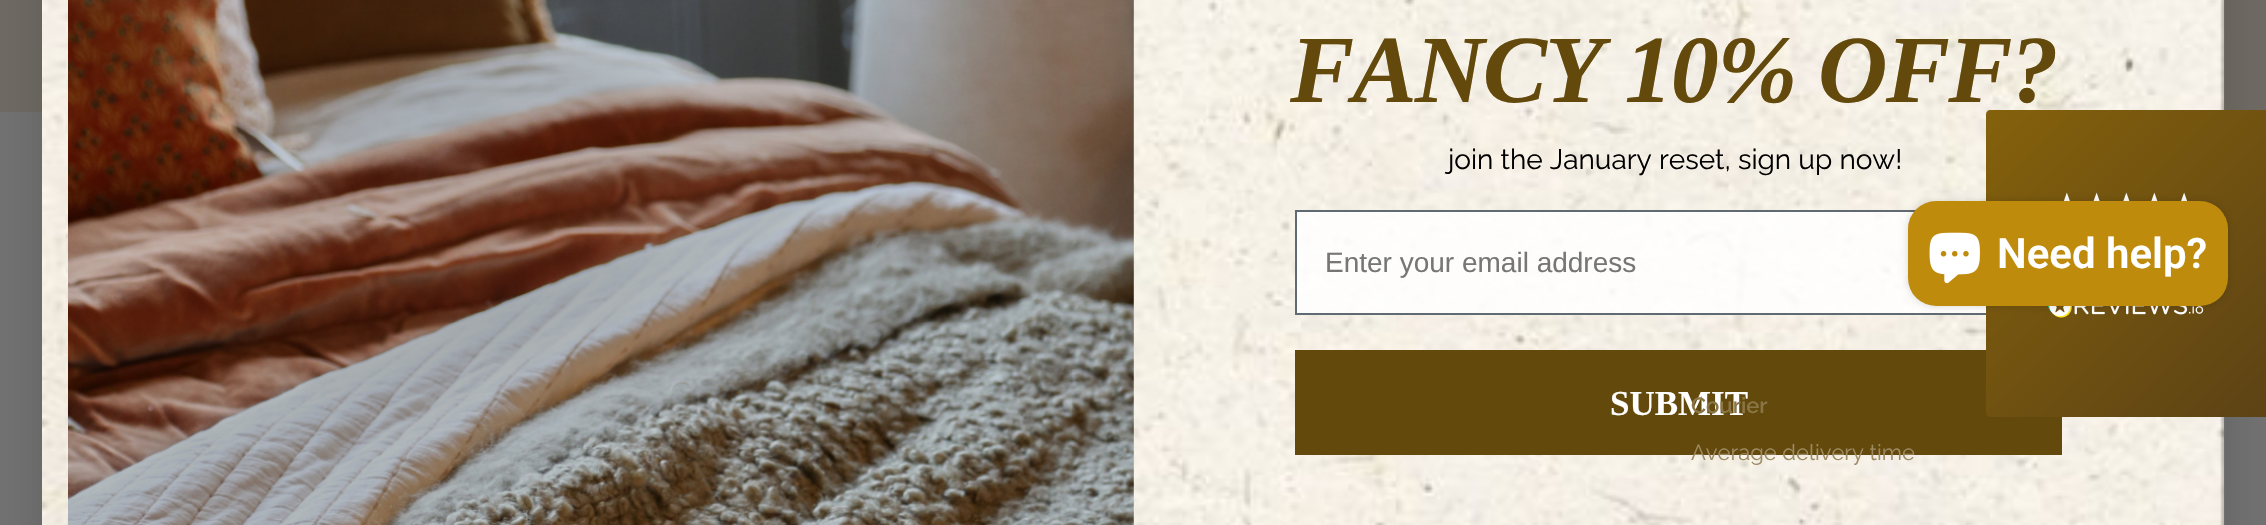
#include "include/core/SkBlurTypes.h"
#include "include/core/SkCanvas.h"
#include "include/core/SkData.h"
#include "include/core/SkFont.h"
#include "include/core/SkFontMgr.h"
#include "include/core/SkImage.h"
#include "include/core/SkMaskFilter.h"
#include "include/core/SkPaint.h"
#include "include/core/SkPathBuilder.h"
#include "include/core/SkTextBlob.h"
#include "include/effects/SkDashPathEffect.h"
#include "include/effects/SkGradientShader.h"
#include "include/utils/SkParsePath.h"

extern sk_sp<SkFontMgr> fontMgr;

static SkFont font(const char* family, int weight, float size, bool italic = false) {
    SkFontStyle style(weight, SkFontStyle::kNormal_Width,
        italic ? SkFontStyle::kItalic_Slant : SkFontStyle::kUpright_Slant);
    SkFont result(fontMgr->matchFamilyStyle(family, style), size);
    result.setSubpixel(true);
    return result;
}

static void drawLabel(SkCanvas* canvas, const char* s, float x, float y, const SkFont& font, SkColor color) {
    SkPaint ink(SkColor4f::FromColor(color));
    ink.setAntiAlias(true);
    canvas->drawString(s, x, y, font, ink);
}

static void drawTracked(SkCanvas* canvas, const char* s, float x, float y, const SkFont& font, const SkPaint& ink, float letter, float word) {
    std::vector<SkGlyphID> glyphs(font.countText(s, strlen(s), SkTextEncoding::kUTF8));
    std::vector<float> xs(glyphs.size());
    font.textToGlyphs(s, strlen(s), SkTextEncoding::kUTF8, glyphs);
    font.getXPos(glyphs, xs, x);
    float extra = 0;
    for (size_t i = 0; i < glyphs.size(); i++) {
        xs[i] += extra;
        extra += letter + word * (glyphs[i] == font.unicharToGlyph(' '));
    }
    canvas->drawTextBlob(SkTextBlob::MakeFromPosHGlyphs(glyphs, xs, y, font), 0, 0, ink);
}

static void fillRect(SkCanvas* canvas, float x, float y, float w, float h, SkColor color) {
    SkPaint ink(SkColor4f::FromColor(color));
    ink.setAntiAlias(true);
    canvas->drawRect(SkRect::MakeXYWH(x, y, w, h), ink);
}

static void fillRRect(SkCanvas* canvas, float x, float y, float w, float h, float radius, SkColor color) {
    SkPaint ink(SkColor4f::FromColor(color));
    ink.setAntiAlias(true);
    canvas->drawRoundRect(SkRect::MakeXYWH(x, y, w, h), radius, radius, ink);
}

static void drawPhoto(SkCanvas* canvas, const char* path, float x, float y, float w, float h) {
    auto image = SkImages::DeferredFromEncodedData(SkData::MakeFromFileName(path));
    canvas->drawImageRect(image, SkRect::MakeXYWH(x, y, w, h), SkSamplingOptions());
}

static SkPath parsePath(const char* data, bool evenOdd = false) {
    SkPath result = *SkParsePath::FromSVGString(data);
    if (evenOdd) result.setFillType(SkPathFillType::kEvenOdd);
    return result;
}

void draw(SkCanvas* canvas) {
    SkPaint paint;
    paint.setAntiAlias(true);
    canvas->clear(0xFF727272);
    fillRect(canvas, 0, 0, 2266, 112, 0xFF6F6B64);
    paint.setColor(0x26000000);
    paint.setMaskFilter(SkMaskFilter::MakeBlur(kNormal_SkBlurStyle, 26));
    canvas->drawRoundRect(SkRect::MakeXYWH(42, -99, 2182, 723), 21, 21, paint);
    paint.setMaskFilter(nullptr);
    drawPhoto(canvas, "assets/img1.png", 42, 0, 2183, 525);
    drawPhoto(canvas, "assets/img2.png", 68, 0, 1066, 525);
    SkFont font1 = font("Liberation Serif", 700, 96.25f, true);
    paint.setColor(0xFF63490C);
    drawTracked(canvas, "FANCY 10% OFF?", 1290, 102, font1, paint, -1.75f, 0);
    SkFont font2 = font("Raleway", 100, 28);
    drawLabel(canvas, "join the January reset, sign up now!", 1448, 169, font2, 0xFF000000);
    fillRect(canvas, 1297, 212, 689, 101, 0xD9FFFFFF);
    paint.setStroke(true);
    paint.setStrokeWidth(2);
    paint.setColor(0xFF606A72);
    canvas->drawRect(SkRect::MakeXYWH(1296, 211, 765, 103), paint);
    SkFont font3 = font("Liberation Sans", 400, 28);
    drawLabel(canvas, "Enter your email address", 1325, 272, font3, 0xFF767676);
    fillRect(canvas, 1295, 350, 767, 105, 0xFF63490C);
    SkFont font4 = font("Liberation Serif", 700, 35);
    drawLabel(canvas, "SUBMIT", 1610, 415, font4, 0xFFFFFFFF);
    paint.setStroke(false);
    {
        const SkColor colors[] = {0xFF84610C, 0xFF5D4315};
        const float stops[] = {0, 1};
        const SkPoint ends[] = {{1980, 116}, {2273, 409}};
        paint.setShader(SkGradientShader::MakeLinear(ends, colors, stops, 2, SkTileMode::kClamp));
        paint.setAlpha(255);
    }
    canvas->drawPath(parsePath("M1990 110H2266V417H1990C1988 417 1986 415 1986 413V114C1986 112 1988 110 1990 110Z"), paint);
    drawPhoto(canvas, "assets/img4.png", 2063, 192, 7, 9);
    drawPhoto(canvas, "assets/img5.png", 2093, 192, 7, 9);
    drawPhoto(canvas, "assets/img6.png", 2123, 192, 7, 9);
    drawPhoto(canvas, "assets/img7.png", 2151, 192, 7, 9);
    drawPhoto(canvas, "assets/img8.png", 2181, 192, 6, 9);
    drawPhoto(canvas, "assets/img9.png", 2048, 306, 156, 12);
    paint.setShader(nullptr);
    paint.setColor(0x26000000);
    paint.setMaskFilter(SkMaskFilter::MakeBlur(kNormal_SkBlurStyle, 4.5f));
    canvas->drawRoundRect(SkRect::MakeXYWH(1908, 201, 320, 105), 28, 28, paint);
    paint.setMaskFilter(nullptr);
    fillRRect(canvas, 1908, 201, 320, 105, 28, 0xFFBF8B0D);
    drawPhoto(canvas, "assets/img3.png", 1929, 232, 51, 52);
    SkFont font5 = font("Roboto", 600, 42);
    drawLabel(canvas, "Need help?", 1997, 268, font5, 0xFFFFFFFF);
    SkFont font6 = font("Raleway", 600, 22);
    drawLabel(canvas, "Courier", 1691, 413, font6, 0xFF897546);
    SkFont font7 = font("Raleway", 100, 22);
    drawLabel(canvas, "Average delivery time", 1691, 460, font7, 0xFF9C8A62);
}
